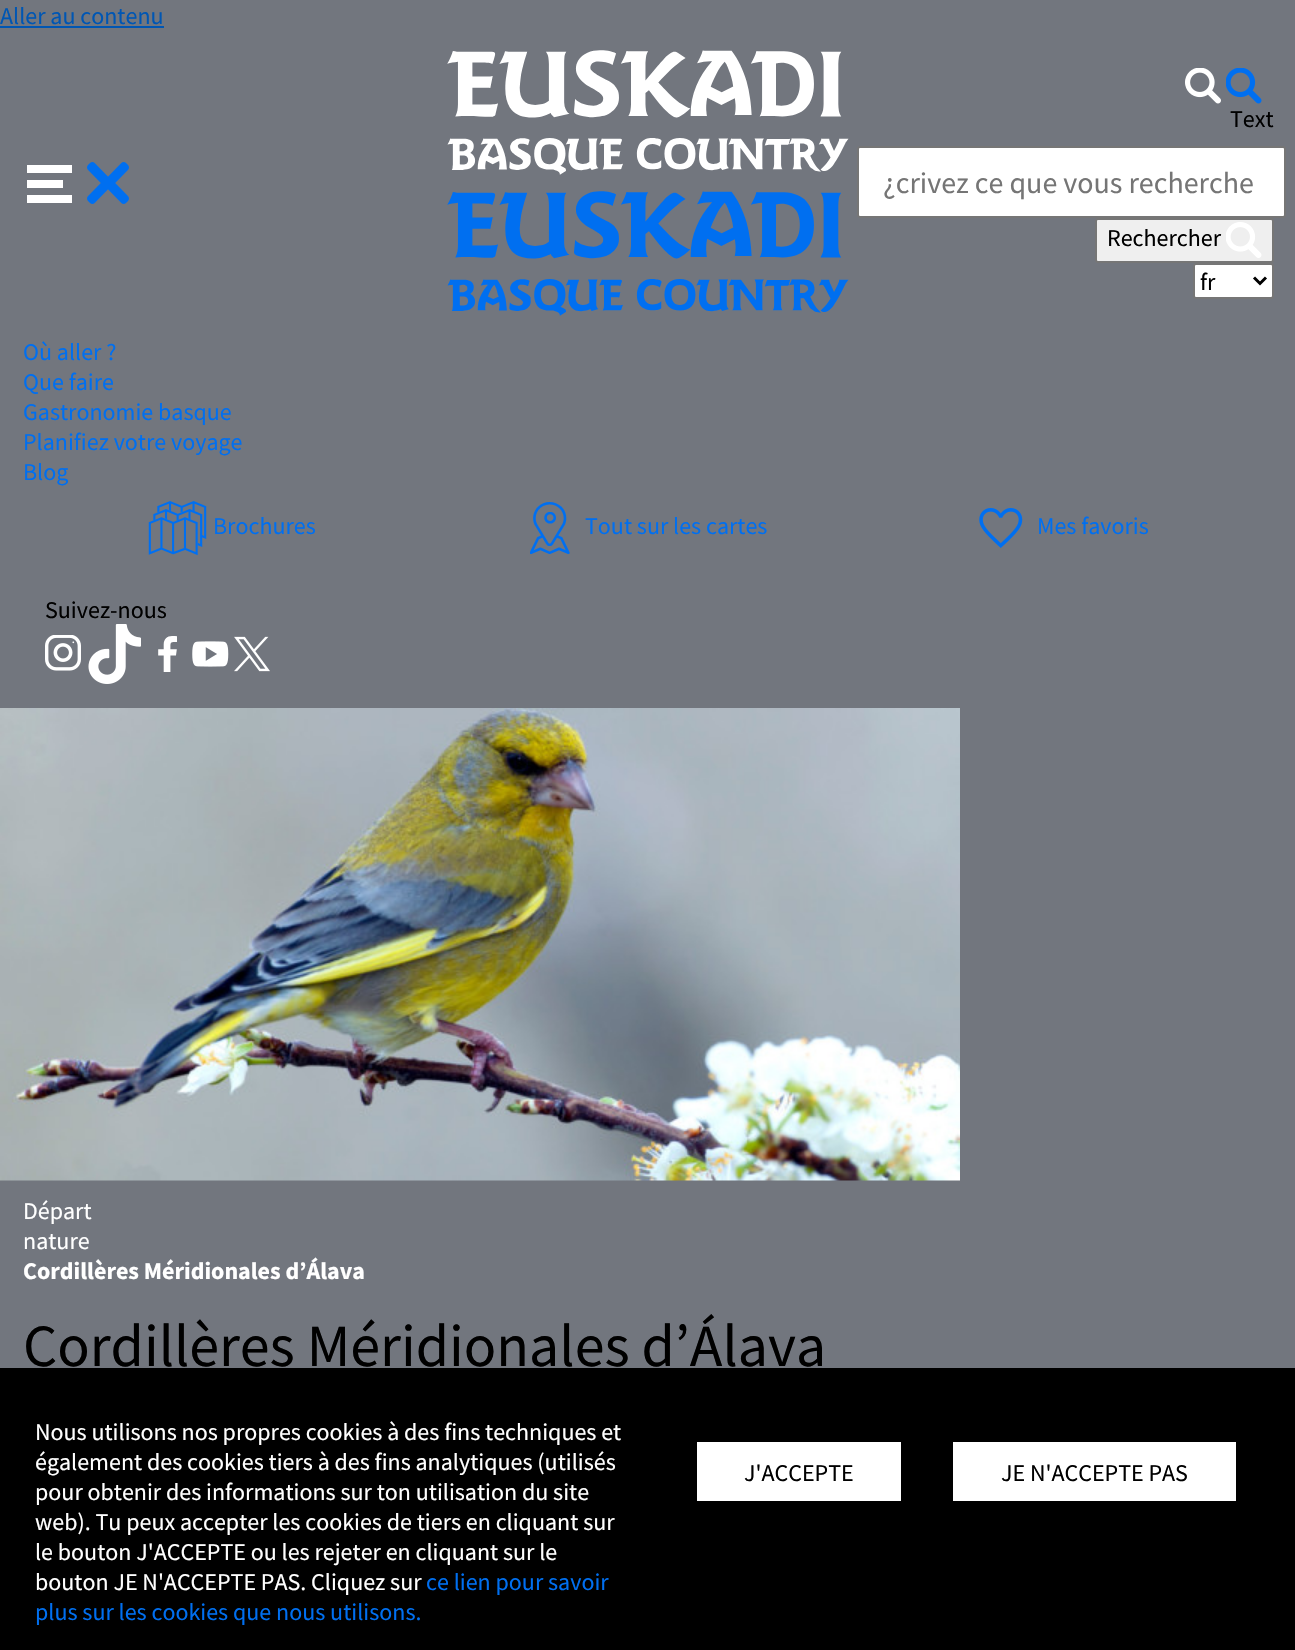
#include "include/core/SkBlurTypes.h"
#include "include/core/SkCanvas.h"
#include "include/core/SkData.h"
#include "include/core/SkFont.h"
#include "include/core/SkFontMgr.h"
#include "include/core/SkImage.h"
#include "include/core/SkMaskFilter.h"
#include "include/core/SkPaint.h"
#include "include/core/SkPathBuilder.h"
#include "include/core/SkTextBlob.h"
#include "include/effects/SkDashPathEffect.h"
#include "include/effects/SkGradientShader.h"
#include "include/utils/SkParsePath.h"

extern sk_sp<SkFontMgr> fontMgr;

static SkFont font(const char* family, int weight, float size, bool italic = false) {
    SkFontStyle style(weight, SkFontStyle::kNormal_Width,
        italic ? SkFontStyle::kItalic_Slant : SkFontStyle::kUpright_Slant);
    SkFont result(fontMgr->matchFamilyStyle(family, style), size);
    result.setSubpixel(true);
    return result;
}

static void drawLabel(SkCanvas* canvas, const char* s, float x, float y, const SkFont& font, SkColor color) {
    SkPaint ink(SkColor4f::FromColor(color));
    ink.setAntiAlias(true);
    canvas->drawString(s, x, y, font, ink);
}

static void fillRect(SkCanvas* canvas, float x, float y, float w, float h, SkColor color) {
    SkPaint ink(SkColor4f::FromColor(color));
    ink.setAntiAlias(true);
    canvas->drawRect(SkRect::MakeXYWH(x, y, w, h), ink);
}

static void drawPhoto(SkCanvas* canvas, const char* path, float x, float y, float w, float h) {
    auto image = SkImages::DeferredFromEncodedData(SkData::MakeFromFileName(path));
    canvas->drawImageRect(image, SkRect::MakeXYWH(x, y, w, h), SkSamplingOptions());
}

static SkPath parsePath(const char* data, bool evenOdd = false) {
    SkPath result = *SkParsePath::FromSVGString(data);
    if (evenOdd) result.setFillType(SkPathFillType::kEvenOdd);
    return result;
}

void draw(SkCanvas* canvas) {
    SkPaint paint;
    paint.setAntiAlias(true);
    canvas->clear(0xFF72767E);
    SkFont font1 = font("Source Sans Pro", 400, 24);
    drawLabel(canvas, "Aller au contenu", 0, 24, font1, 0xFF0056B3);
    fillRect(canvas, 0, 26, 164, 2, 0xFF0056B3);
    fillRect(canvas, 27, 165, 45, 8, 0xFFFFFFFF);
    drawPhoto(canvas, "assets/img1.png", 87, 162, 42, 42);
    fillRect(canvas, 27, 180, 36, 8, 0xFFFFFFFF);
    fillRect(canvas, 27, 195, 45, 8, 0xFFFFFFFF);
    drawPhoto(canvas, "assets/img2.png", 447, 50, 402, 125);
    drawPhoto(canvas, "assets/img3.png", 447, 191, 402, 125);
    drawPhoto(canvas, "assets/img4.png", 1185, 68, 36, 36);
    drawPhoto(canvas, "assets/img5.png", 1226, 68, 36, 36);
    drawLabel(canvas, "Text", 1230, 127, font1, 0xFF000000);
    paint.setColor(0xFFFFFFFF);
    canvas->drawRoundRect(SkRect::MakeXYWH(858, 147, 427, 70), 2, 2, paint);
    paint.setStroke(true);
    paint.setStrokeWidth(2);
    paint.setColor(0xFF767676);
    canvas->drawRoundRect(SkRect::MakeXYWH(858, 147, 427, 70), 2, 2, paint);
    SkFont font2 = font("Source Sans Pro", 400, 30);
    drawLabel(canvas, "¿crivez ce que vous recherche", 883, 193, font2, 0xFF757575);
    paint.setStroke(false);
    paint.setColor(0xFFEFEFEF);
    canvas->drawRoundRect(SkRect::MakeXYWH(1096, 219, 177, 43), 2, 2, paint);
    paint.setStroke(true);
    paint.setColor(0xFF767676);
    canvas->drawRoundRect(SkRect::MakeXYWH(1096, 219, 177, 43), 2, 2, paint);
    drawLabel(canvas, "Rechercher", 1107, 246, font1, 0xFF000000);
    drawPhoto(canvas, "assets/img6.png", 1226, 222, 36, 36);
    paint.setStroke(false);
    paint.setColor(0xFFFFFFFF);
    canvas->drawRoundRect(SkRect::MakeXYWH(1194, 264, 79, 34), 2, 2, paint);
    paint.setStroke(true);
    paint.setColor(0xFF767676);
    canvas->drawRoundRect(SkRect::MakeXYWH(1194, 264, 79, 34), 2, 2, paint);
    paint.setStrokeWidth(3);
    paint.setColor(0xFF000000);
    canvas->drawPath(parsePath("M1254 277.5L1260 283.5L1266 277.5"), paint);
    drawLabel(canvas, "fr", 1200, 290, font1, 0xFF000000);
    drawLabel(canvas, "Où aller ?", 23, 360, font1, 0xFF006FF0);
    drawLabel(canvas, "Que faire", 23, 390, font1, 0xFF006FF0);
    drawLabel(canvas, "Gastronomie basque", 23, 420, font1, 0xFF006FF0);
    drawLabel(canvas, "Planifiez votre voyage", 23, 450, font1, 0xFF006FF0);
    drawLabel(canvas, "Blog", 23, 480, font1, 0xFF006FF0);
    drawPhoto(canvas, "assets/img7.png", 148, 501, 59, 55);
    drawLabel(canvas, "Brochures", 213, 534, font1, 0xFF006FF0);
    drawPhoto(canvas, "assets/img8.png", 530, 502, 40, 52);
    drawLabel(canvas, "Tout sur les cartes", 585, 534, font1, 0xFF006FF0);
    drawPhoto(canvas, "assets/img9.png", 979, 508, 44, 40);
    drawLabel(canvas, "Mes favoris", 1037, 534, font1, 0xFF006FF0);
    drawLabel(canvas, "Suivez-nous", 45, 618, font1, 0xFF000000);
    drawPhoto(canvas, "assets/img10.png", 45, 635, 36, 36);
    drawPhoto(canvas, "assets/img11.png", 88, 624, 53, 60);
    drawPhoto(canvas, "assets/img12.png", 158, 636, 19, 36);
    drawPhoto(canvas, "assets/img13.png", 192, 641, 37, 26);
    drawPhoto(canvas, "assets/img14.png", 234, 636, 36, 36);
    drawPhoto(canvas, "assets/img15.png", 0, 708, 960, 473);
    drawLabel(canvas, "Départ", 23, 1219, font1, 0xFFFFFFFF);
    drawLabel(canvas, "nature", 23, 1249, font1, 0xFFFFFFFF);
    SkFont font3 = font("Source Sans Pro", 700, 24);
    drawLabel(canvas, "Cordillères Méridionales d’Álava", 23, 1279, font3, 0xFFFFFFFF);
    SkFont font4 = font("Source Sans Pro", 400, 60);
    drawLabel(canvas, "Cordillères Méridionales d’Álava", 23, 1366, font4, 0xFF000000);
    fillRect(canvas, 0, 1368, 1295, 282, 0xFF000000);
    drawLabel(canvas, "Nous utilisons nos propres cookies à des fins techniques et", 35, 1440, font1, 0xFFFFFFFF);
    drawLabel(canvas, "également des cookies tiers à des fins analytiques (utilisés", 35, 1470, font1, 0xFFFFFFFF);
    drawLabel(canvas, "pour obtenir des informations sur ton utilisation du site", 35, 1500, font1, 0xFFFFFFFF);
    drawLabel(canvas, "web). Tu peux accepter les cookies de tiers en cliquant sur", 35, 1530, font1, 0xFFFFFFFF);
    drawLabel(canvas, "le bouton J'ACCEPTE ou les rejeter en cliquant sur le", 35, 1560, font1, 0xFFFFFFFF);
    drawLabel(canvas, "bouton JE N'ACCEPTE PAS. Cliquez sur", 35, 1590, font1, 0xFFFFFFFF);
    drawLabel(canvas, "ce lien pour savoir", 426, 1590, font1, 0xFF006FF0);
    drawLabel(canvas, "plus sur les cookies que nous utilisons.", 35, 1620, font1, 0xFF006FF0);
    fillRect(canvas, 697, 1442, 204, 59, 0xFFFFFFFF);
    drawLabel(canvas, "J'ACCEPTE", 744, 1481, font1, 0xFF000000);
    fillRect(canvas, 953, 1442, 283, 59, 0xFFFFFFFF);
    drawLabel(canvas, "JE N'ACCEPTE PAS", 1001, 1481, font1, 0xFF000000);
}
